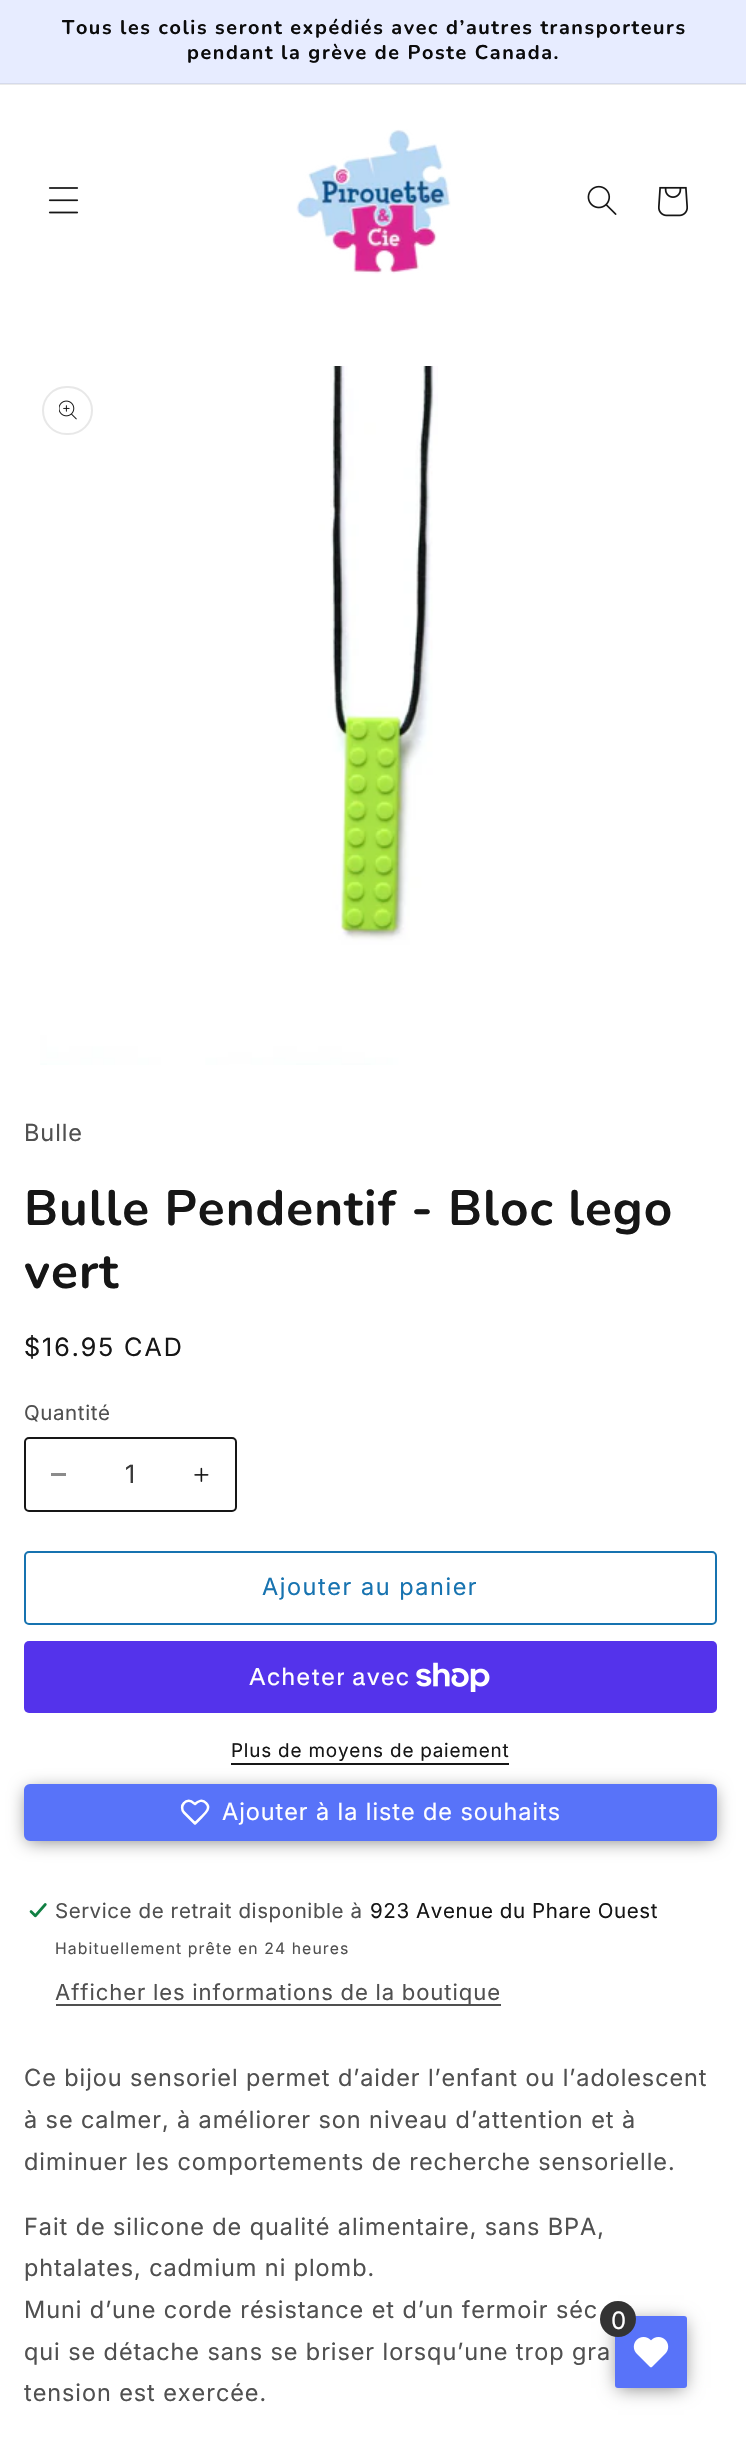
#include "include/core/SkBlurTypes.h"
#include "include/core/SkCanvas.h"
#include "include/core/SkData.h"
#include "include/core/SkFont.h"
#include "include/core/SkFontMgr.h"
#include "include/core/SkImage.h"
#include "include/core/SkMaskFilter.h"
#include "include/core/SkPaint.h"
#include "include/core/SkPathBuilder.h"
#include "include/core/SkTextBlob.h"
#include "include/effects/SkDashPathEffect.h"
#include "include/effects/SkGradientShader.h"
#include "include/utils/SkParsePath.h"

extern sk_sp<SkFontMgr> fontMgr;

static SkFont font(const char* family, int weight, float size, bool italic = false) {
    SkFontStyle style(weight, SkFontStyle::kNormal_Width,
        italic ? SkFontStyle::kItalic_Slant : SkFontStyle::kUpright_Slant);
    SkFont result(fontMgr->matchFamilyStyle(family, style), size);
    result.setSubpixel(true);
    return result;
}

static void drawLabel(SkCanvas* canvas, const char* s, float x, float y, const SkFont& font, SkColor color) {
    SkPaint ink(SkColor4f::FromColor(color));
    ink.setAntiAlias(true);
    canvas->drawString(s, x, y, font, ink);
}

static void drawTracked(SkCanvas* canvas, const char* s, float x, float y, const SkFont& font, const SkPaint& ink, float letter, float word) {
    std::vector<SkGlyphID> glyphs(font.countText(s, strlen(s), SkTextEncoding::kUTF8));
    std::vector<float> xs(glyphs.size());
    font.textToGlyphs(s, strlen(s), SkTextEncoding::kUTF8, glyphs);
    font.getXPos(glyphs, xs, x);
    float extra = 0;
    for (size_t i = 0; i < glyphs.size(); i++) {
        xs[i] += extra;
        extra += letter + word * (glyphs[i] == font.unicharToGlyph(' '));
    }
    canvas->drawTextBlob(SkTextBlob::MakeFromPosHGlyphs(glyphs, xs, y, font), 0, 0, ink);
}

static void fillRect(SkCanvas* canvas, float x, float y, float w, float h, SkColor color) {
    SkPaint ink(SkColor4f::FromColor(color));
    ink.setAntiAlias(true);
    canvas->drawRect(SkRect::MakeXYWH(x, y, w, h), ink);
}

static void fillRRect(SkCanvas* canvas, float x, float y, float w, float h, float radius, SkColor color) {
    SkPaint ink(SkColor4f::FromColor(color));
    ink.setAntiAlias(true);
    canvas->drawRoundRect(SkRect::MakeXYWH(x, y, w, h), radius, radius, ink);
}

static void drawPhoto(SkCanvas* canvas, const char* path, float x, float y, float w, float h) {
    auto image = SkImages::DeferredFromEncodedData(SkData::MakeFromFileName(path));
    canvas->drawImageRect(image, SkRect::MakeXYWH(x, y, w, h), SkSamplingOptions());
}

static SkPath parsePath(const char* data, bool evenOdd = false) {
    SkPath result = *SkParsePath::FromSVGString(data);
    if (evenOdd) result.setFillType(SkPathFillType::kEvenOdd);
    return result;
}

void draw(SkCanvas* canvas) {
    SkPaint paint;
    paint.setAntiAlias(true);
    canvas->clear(0xFFFFFFFF);
    fillRect(canvas, 0, 84, 746, 1, 0xFFEBEBEB);
    fillRect(canvas, 0, 0, 746, 83, 0xFFE7ECFF);
    fillRect(canvas, 0, 83, 746, 1, 0xFFD5DAEB);
    SkFont font1 = font("Nunito", 700, 19.8f);
    paint.setColor(0xFF0B0B0B);
    drawTracked(canvas, "Tous les colis seront expédiés avec d’autres transporteurs", 62, 34, font1, paint, 1.58f, 0);
    drawTracked(canvas, "pendant la grève de Poste Canada.", 187, 59, font1, paint, 1.58f, 0);
    drawPhoto(canvas, "assets/img1.png", 48, 187, 31, 27);
    drawPhoto(canvas, "assets/img2.png", 296, 129, 155, 145);
    drawPhoto(canvas, "assets/img3.png", 587, 185, 30, 30);
    drawPhoto(canvas, "assets/img4.png", 658, 186, 30, 31);
    drawPhoto(canvas, "assets/img5.png", 40, 366, 398, 699);
    paint.setStroke(true);
    paint.setStrokeWidth(2);
    paint.setColor(0xFFE8E8E8);
    canvas->drawRoundRect(SkRect::MakeXYWH(43, 387, 49, 47), 23.5f, 23.5f, paint);
    drawPhoto(canvas, "assets/img6.png", 59, 400, 18, 20);
    SkFont font2 = font("Inter", 400, 23.6f);
    paint.setStroke(false);
    paint.setColor(0xFF505050);
    drawTracked(canvas, "Bulle", 24, 1141, font2, paint, 0.95f, 0);
    SkFont font3 = font("Nunito", 700, 49.5f);
    paint.setColor(0xFF161616);
    drawTracked(canvas, "Bulle Pendentif - Bloc lego", 24, 1225, font3, paint, 1, 0);
    drawTracked(canvas, "vert", 24, 1288, font3, paint, 1, 0);
    SkFont font4 = font("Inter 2", 400, 25.25f);
    drawTracked(canvas, "$16.95 CAD", 24, 1356, font4, paint, 2, 0);
    SkFont font5 = font("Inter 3", 400, 20.5f);
    paint.setColor(0xFF505050);
    drawTracked(canvas, "Quantité", 24, 1420, font5, paint, 0.6f, 0);
    fillRect(canvas, 51, 1473, 15, 3, 0xFF8B8B8B);
    drawPhoto(canvas, "assets/img7.png", 194, 1467, 15, 15);
    paint.setStroke(true);
    paint.setColor(0xFF161616);
    canvas->drawRoundRect(SkRect::MakeXYWH(25, 1438, 211, 73), 4, 4, paint);
    drawLabel(canvas, "1", 125, 1483, font4, 0xFF393939);
    paint.setColor(0xFF1773B0);
    canvas->drawRoundRect(SkRect::MakeXYWH(25, 1552, 691, 72), 4, 4, paint);
    paint.setStroke(false);
    drawTracked(canvas, "Ajouter au panier", 262, 1595, font2, paint, 1.58f, 0);
    fillRRect(canvas, 24, 1641, 693, 72, 5, 0xFF5433EB);
    SkFont font6 = font("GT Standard", 400, 24);
    paint.setColor(0xFFFFFFFF);
    drawTracked(canvas, "Acheter avec", 249, 1685, font6, paint, 0.95f, 0);
    drawPhoto(canvas, "assets/img8.png", 416, 1662, 74, 30);
    SkFont font7 = font("Inter 3", 400, 18.9f);
    paint.setColor(0xFF161616);
    drawTracked(canvas, "Plus de moyens de paiement", 231, 1757, font7, paint, 0.8f, 0);
    fillRect(canvas, 231, 1763, 278, 2, 0xFF161616);
    paint.setColor(0x80000000);
    paint.setMaskFilter(SkMaskFilter::MakeBlur(kNormal_SkBlurStyle, 9));
    canvas->drawRoundRect(SkRect::MakeXYWH(27, 1790, 687, 51), 3, 3, paint);
    paint.setMaskFilter(nullptr);
    paint.setColor(0xFF5873F9);
    canvas->drawRoundRect(SkRect::MakeXYWH(25, 1785, 691, 55), 5, 5, paint);
    paint.setStroke(true);
    canvas->drawRoundRect(SkRect::MakeXYWH(25, 1785, 691, 55), 5, 5, paint);
    paint.setStrokeWidth(2.5f);
    paint.setStrokeCap(SkPaint::kRound_Cap);
    paint.setStrokeJoin(SkPaint::kRound_Join);
    paint.setColor(0xFFFFFFFF);
    canvas->drawPath(parsePath("M206 1803C202.5 1799 198 1801 195 1804L193.5 1803C191 1800 186.5 1800 184 1803C181.5 1805.5 181.5 1810 184 1812.5L195 1823.5L201.5 1817C205 1813.5 211.5 1808 206 1803Z"), paint);
    paint.setStroke(false);
    drawTracked(canvas, "Ajouter à la liste de souhaits", 222, 1820, font2, paint, 0.95f, 0);
    drawPhoto(canvas, "assets/img9.png", 29, 1903, 19, 15);
    paint.setColor(0xFF505050);
    drawTracked(canvas, "Service de retrait disponible à", 55, 1918, font5, paint, 0.6f, 0);
    paint.setColor(0xFF161616);
    drawTracked(canvas, "923 Avenue du Phare Ouest", 370, 1918, font5, paint, 0.6f, 0);
    SkFont font8 = font("Inter 3", 400, 15.75f);
    paint.setColor(0xFF505050);
    drawTracked(canvas, "Habituellement prête en 24 heures", 55, 1954, font8, paint, 1.1f, 0);
    fillRect(canvas, 56, 2004, 445, 2, 0xFF505050);
    SkFont font9 = font("Inter 3", 400, 22.05f);
    drawTracked(canvas, "Afficher les informations de la boutique", 55, 2000, font9, paint, 0.95f, -0.5f);
    drawTracked(canvas, "Ce bijou sensoriel permet d’aider l’enfant ou l’adolescent", 24, 2086, font2, paint, 0.95f, 0);
    drawTracked(canvas, "à se calmer, à améliorer son niveau d’attention et à", 24, 2128, font2, paint, 0.95f, 0);
    drawTracked(canvas, "diminuer les comportements de recherche sensorielle.", 24, 2170, font2, paint, 0.95f, 0);
    drawTracked(canvas, "Fait de silicone de qualité alimentaire, sans BPA,", 24, 2235, font2, paint, 0.95f, 0);
    drawTracked(canvas, "phtalates, cadmium ni plomb.", 24, 2276, font2, paint, 0.95f, 0);
    drawTracked(canvas, "Muni d’une corde résistance et d’un fermoir séc", 24, 2318, font2, paint, 0.95f, 0);
    drawTracked(canvas, "qui se détache sans se briser lorsqu’une trop gra", 24, 2360, font2, paint, 0.95f, 0);
    drawTracked(canvas, "tension est exercée.", 24, 2401, font2, paint, 0.95f, 0);
    paint.setColor(0x80000000);
    paint.setMaskFilter(SkMaskFilter::MakeBlur(kNormal_SkBlurStyle, 9));
    canvas->drawRect(SkRect::MakeXYWH(618, 2322, 66, 66), paint);
    paint.setMaskFilter(nullptr);
    fillRRect(canvas, 615, 2316, 72, 72, 3, 0xFF5873F9);
    paint.setColor(0xFF333333);
    canvas->drawCircle(618, 2319, 18, paint);
    SkFont font10 = font("Inter 3", 400, 24);
    paint.setColor(0xFFFFFFFF);
    drawTracked(canvas, "0", 611, 2329, font10, paint, 0.95f, 0);
    drawPhoto(canvas, "assets/img10.png", 633, 2337, 36, 31);
}
